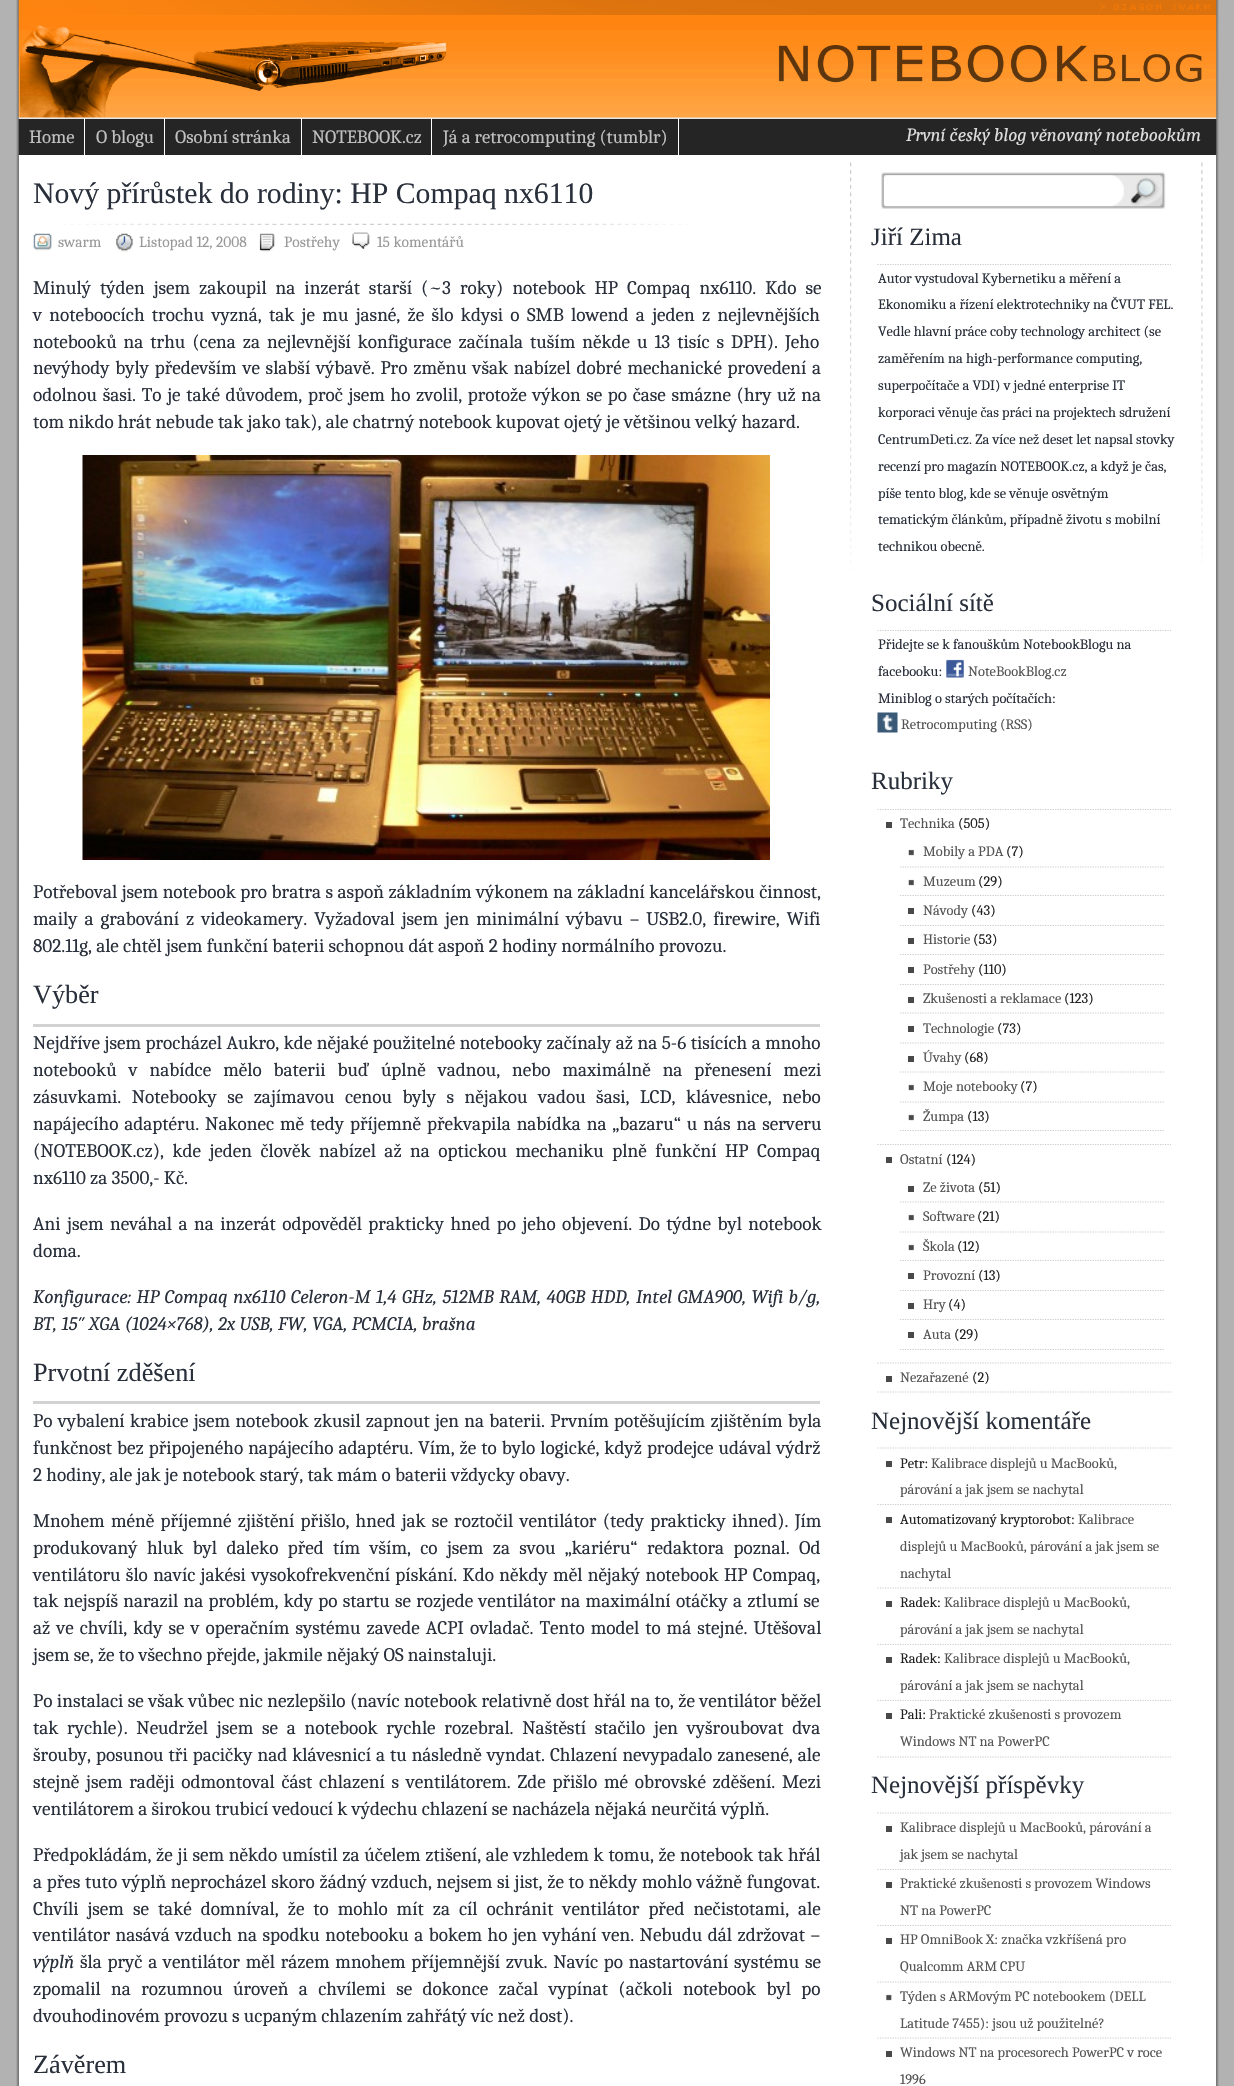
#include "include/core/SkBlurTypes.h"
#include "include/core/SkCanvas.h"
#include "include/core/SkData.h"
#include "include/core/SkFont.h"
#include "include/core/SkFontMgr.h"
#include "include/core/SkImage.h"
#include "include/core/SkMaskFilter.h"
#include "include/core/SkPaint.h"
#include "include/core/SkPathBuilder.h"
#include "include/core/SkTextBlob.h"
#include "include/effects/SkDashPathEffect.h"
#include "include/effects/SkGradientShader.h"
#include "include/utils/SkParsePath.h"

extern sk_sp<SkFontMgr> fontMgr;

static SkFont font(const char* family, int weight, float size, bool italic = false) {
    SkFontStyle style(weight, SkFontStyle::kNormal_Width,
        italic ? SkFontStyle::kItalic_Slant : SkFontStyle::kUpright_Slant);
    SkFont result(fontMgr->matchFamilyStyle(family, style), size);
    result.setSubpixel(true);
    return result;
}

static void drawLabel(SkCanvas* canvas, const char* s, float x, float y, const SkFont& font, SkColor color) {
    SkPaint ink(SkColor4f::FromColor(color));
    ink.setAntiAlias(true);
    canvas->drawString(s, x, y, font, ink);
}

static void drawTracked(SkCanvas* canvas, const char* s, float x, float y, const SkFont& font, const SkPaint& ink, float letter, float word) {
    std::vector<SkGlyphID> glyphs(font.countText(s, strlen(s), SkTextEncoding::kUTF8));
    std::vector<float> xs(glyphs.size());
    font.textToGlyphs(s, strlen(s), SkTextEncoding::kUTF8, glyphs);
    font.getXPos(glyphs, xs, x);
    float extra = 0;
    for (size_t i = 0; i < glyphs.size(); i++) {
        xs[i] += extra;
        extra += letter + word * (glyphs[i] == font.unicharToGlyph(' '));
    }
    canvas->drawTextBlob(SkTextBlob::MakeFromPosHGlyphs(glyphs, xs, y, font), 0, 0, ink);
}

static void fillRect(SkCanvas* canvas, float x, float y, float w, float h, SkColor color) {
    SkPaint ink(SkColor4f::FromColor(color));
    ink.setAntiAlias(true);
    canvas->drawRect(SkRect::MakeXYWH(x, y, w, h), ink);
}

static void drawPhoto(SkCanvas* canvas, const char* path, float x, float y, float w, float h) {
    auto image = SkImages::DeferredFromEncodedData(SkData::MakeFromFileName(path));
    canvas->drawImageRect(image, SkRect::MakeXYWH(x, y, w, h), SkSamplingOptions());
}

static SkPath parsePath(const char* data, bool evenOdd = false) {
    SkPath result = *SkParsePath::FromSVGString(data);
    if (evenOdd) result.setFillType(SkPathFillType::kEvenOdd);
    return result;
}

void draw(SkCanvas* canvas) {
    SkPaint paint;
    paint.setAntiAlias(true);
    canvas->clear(0xFFB2B2B2);
    drawPhoto(canvas, "assets/img1.png", 16, 0, 1203, 2086);
    fillRect(canvas, 19, 155, 1197, 1931, 0xFFFFFFFF);
    drawPhoto(canvas, "assets/img2.png", 18, 0, 1199, 155);
    fillRect(canvas, 84, 118, 1, 37, 0xFFFFFFFF);
    SkFont font1 = font("Caladea", 400, 18.75f);
    drawLabel(canvas, "Home", 29, 143, font1, 0xFFC0C0C0);
    fillRect(canvas, 164, 118, 1, 37, 0xFFFFFFFF);
    drawLabel(canvas, "O blogu", 96, 143, font1, 0xFFC0C0C0);
    fillRect(canvas, 301, 118, 1, 37, 0xFFFFFFFF);
    drawLabel(canvas, "Osobní stránka", 175, 143, font1, 0xFFC0C0C0);
    fillRect(canvas, 431, 118, 1, 37, 0xFFFFFFFF);
    drawLabel(canvas, "NOTEBOOK.cz", 312, 143, font1, 0xFFC0C0C0);
    fillRect(canvas, 678, 118, 1, 37, 0xFFFFFFFF);
    drawLabel(canvas, "Já a retrocomputing (tumblr)", 443, 143, font1, 0xFFC0C0C0);
    SkFont font2 = font("Caladea", 400, 18.75f, true);
    drawLabel(canvas, "První český blog věnovaný notebookům", 906, 141, font2, 0xFFDDDDDD);
    drawPhoto(canvas, "assets/img3.png", 850, 162, 2, 409);
    SkFont font3 = font("Liberation Serif", 400, 29.75f);
    drawLabel(canvas, "Nový přírůstek do rodiny: HP Compaq nx6110", 33, 203, font3, 0xFF29303B);
    drawPhoto(canvas, "assets/img4.png", 63, 223, 625, 2);
    drawPhoto(canvas, "assets/img5.png", 33, 233, 19, 18);
    SkFont font4 = font("Caladea", 400, 15.5f);
    drawLabel(canvas, "swarm", 58, 247, font4, 0xFF999999);
    drawPhoto(canvas, "assets/img6.png", 116, 233, 17, 19);
    drawLabel(canvas, "Listopad 12, 2008", 139, 247, font4, 0xFF999999);
    drawPhoto(canvas, "assets/img7.png", 259, 233, 17, 19);
    drawLabel(canvas, "Postřehy", 284, 247, font4, 0xFF999999);
    drawPhoto(canvas, "assets/img8.png", 352, 232, 18, 17);
    drawLabel(canvas, "15 komentářů", 377, 247, font4, 0xFF999999);
    SkFont font5 = font("Caladea", 400, 19.2f);
    paint.setColor(0xFF29303B);
    drawTracked(canvas, "Minulý týden jsem zakoupil na inzerát starší (~3 roky) notebook HP Compaq nx6110. Kdo se", 33, 294, font5, paint, 0, 4.75f);
    drawTracked(canvas, "v noteboocích trochu vyzná, tak je mu jasné, že šlo kdysi o SMB lowend a jeden z nejlevnějších", 33, 321, font5, paint, 0, 3.1f);
    drawTracked(canvas, "notebooků na trhu (cena za nejlevnější konfigurace začínala tuším někde u 13 tisíc s DPH). Jeho", 33, 348, font5, paint, 0, 2.75f);
    drawTracked(canvas, "nevýhody byly především ve slabší výbavě. Pro změnu však nabízel dobré mechanické provedení a", 33, 374, font5, paint, 0, 1.5f);
    drawTracked(canvas, "odolnou šasi. To je také důvodem, proč jsem ho zvolil, protože výkon se po čase smázne (hry už na", 33, 401, font5, paint, 0, 1.4f);
    drawLabel(canvas, "tom nikdo hrát nebude tak jako tak), ale chatrný notebook kupovat ojetý je většinou velký hazard.", 33, 428, font5, 0xFF29303B);
    drawPhoto(canvas, "assets/img9.png", 82, 455, 688, 405);
    drawTracked(canvas, "Potřeboval jsem notebook pro bratra s aspoň základním výkonem na základní kancelářskou činnost,", 33, 898, font5, paint, 0, 0.25f);
    drawTracked(canvas, "maily a grabování z videokamery. Vyžadoval jsem jen minimální výbavu – USB2.0, firewire, Wifi", 33, 925, font5, paint, 0, 2.75f);
    drawLabel(canvas, "802.11g, ale chtěl jsem funkční baterii schopnou dát aspoň 2 hodiny normálního provozu.", 33, 952, font5, 0xFF29303B);
    fillRect(canvas, 33, 1024, 787, 3, 0xFFD2D2D2);
    SkFont font6 = font("Liberation Serif", 400, 26.25f);
    drawLabel(canvas, "Výběr", 33, 1003, font6, 0xFF29303B);
    drawTracked(canvas, "Nejdříve jsem procházel Aukro, kde nějaké použitelné notebooky začínaly až na 5-6 tisících a mnoho", 33, 1049, font5, paint, 0, 0.25f);
    drawTracked(canvas, "notebooků v nabídce mělo baterii buď úplně vadnou, nebo maximálně na přenesení mezi", 33, 1076, font5, paint, 0, 7.75f);
    drawTracked(canvas, "zásuvkami. Notebooky se zajímavou cenou byly s nějakou vadou šasi, LCD, klávesnice, nebo", 33, 1103, font5, paint, 0, 6.25f);
    drawTracked(canvas, "napájecího adaptéru. Nakonec mě tedy příjemně překvapila nabídka na „bazaru“ u nás na serveru", 33, 1130, font5, paint, 0, 1.75f);
    drawTracked(canvas, "(NOTEBOOK.cz), kde jeden člověk nabízel až na optickou mechaniku plně funkční HP Compaq", 33, 1157, font5, paint, 0, 4.25f);
    drawLabel(canvas, "nx6110 za 3500,- Kč.", 33, 1184, font5, 0xFF29303B);
    drawTracked(canvas, "Ani jsem neváhal a na inzerát odpověděl prakticky hned po jeho objevení. Do týdne byl notebook", 33, 1230, font5, paint, 0, 2.25f);
    drawLabel(canvas, "doma.", 33, 1257, font5, 0xFF29303B);
    SkFont font7 = font("Caladea", 400, 19.2f, true);
    drawTracked(canvas, "Konfigurace: HP Compaq nx6110 Celeron-M 1,4 GHz, 512MB RAM, 40GB HDD, Intel GMA900, Wifi b/g,", 33, 1303, font7, paint, 0, 1.1f);
    drawLabel(canvas, "BT, 15″ XGA (1024×768), 2x USB, FW, VGA, PCMCIA, brašna", 33, 1330, font7, 0xFF29303B);
    fillRect(canvas, 33, 1401, 787, 3, 0xFFD2D2D2);
    drawLabel(canvas, "Prvotní zděšení", 33, 1381, font6, 0xFF29303B);
    drawTracked(canvas, "Po vybalení krabice jsem notebook zkusil zapnout jen na baterii. Prvním potěšujícím zjištěním byla", 33, 1427, font5, paint, 0, 1);
    drawTracked(canvas, "funkčnost bez připojeného napájecího adaptéru. Vím, že to bylo logické, když prodejce udával výdrž", 33, 1454, font5, paint, 0, 0.75f);
    drawLabel(canvas, "2 hodiny, ale jak je notebook starý, tak mám o baterii vždycky obavy.", 33, 1481, font5, 0xFF29303B);
    drawTracked(canvas, "Mnohem méně příjemné zjištění přišlo, hned jak se roztočil ventilátor (tedy prakticky ihned). Jím", 33, 1527, font5, paint, 0, 2);
    drawTracked(canvas, "produkovaný hluk byl daleko před tím vším, co jsem za svou „kariéru“ redaktora poznal. Od", 33, 1554, font5, paint, 0, 5.1f);
    drawTracked(canvas, "ventilátoru šlo navíc jakési vysokofrekvenční pískání. Kdo někdy měl nějaký notebook HP Compaq,", 33, 1581, font5, paint, 0, 1.1f);
    drawTracked(canvas, "tak nejspíš narazil na problém, kdy po startu se rozjede ventilátor na maximální otáčky a ztlumí se", 33, 1607, font5, paint, 0, 1);
    drawTracked(canvas, "až ve chvíli, kdy se v operačním systému zavede ACPI ovladač. Tento model to má stejné. Utěšoval", 33, 1634, font5, paint, 0, 1.75f);
    drawLabel(canvas, "jsem se, že to všechno přejde, jakmile nějaký OS nainstaluji.", 33, 1661, font5, 0xFF29303B);
    drawTracked(canvas, "Po instalaci se však vůbec nic nezlepšilo (navíc notebook relativně dost hřál na to, že ventilátor běžel", 33, 1707, font5, paint, 0, 0.2f);
    drawTracked(canvas, "tak rychle). Neudržel jsem se a notebook rychle rozebral. Naštěstí stačilo jen vyšroubovat dva", 33, 1734, font5, paint, 0, 4.5f);
    drawTracked(canvas, "šrouby, posunou tři pacičky nad klávesnicí a tu následně vyndat. Chlazení nevypadalo zanesené, ale", 33, 1761, font5, paint, 0, 0.75f);
    drawTracked(canvas, "stejně jsem raději odmontoval část chlazení s ventilátorem. Zde přišlo mé obrovské zděšení. Mezi", 33, 1788, font5, paint, 0, 2.5f);
    drawLabel(canvas, "ventilátorem a širokou trubicí vedoucí k výdechu chlazení se nacházela nějaká neurčitá výplň.", 33, 1815, font5, 0xFF29303B);
    drawTracked(canvas, "Předpokládám, že ji sem někdo umístil za účelem ztišení, ale vzhledem k tomu, že notebook tak hřál", 33, 1861, font5, paint, 0, 0.5f);
    drawTracked(canvas, "a přes tuto výplň neprocházel skoro žádný vzduch, nejsem si jist, že to někdy mohlo vážně fungovat.", 33, 1888, font5, paint, 0, 0.5f);
    drawTracked(canvas, "Chvíli jsem se také domníval, že to mohlo mít za cíl ochránit ventilátor před nečistotami, ale", 33, 1915, font5, paint, 0, 4.75f);
    drawTracked(canvas, "ventilátor nasává vzduch na spodku notebooku a bokem ho jen vyhání ven. Nebudu dál zdržovat –", 33, 1941, font5, paint, 0, 1.25f);
    drawLabel(canvas, "výplň", 33, 1968, font7, 0xFF29303B);
    drawTracked(canvas, "šla pryč a ventilátor měl rázem mnohem příjemnější zvuk. Navíc po nastartování systému se", 80, 1968, font5, paint, 0, 1.5f);
    drawTracked(canvas, "zpomalil na rozumnou úroveň a chvílemi se dokonce začal vypínat (ačkoli notebook byl po", 33, 1995, font5, paint, 0, 6.1f);
    drawLabel(canvas, "dvouhodinovém provozu s ucpaným chlazením zahřátý víc než dost).", 33, 2022, font5, 0xFF29303B);
    drawLabel(canvas, "Závěrem", 33, 2073, font6, 0xFF29303B);
    drawPhoto(canvas, "assets/img10.png", 1201, 162, 2, 401);
    drawPhoto(canvas, "assets/img11.png", 881, 172, 244, 37);
    drawPhoto(canvas, "assets/img12.png", 1125, 172, 41, 37);
    paint.setStroke(true);
    paint.setStrokeWidth(1.2f);
    paint.setColor(0xFFCCCCCC);
    paint.setPathEffect(SkDashPathEffect::Make({{1.25f, 1.25f}}, 0));
    canvas->drawPath(parsePath("M877.5 264.5H1171"), paint);
    paint.setPathEffect(nullptr);
    SkFont font8 = font("Liberation Serif", 400, 25);
    drawLabel(canvas, "Jiří Zima", 871, 245, font8, 0xFF29303B);
    SkFont font9 = font("Caladea", 400, 14.4f);
    drawLabel(canvas, "Autor vystudoval Kybernetiku a měření a", 878, 283, font9, 0xFF29303B);
    drawLabel(canvas, "Ekonomiku a řízení elektrotechniky na ČVUT FEL.", 878, 309, font9, 0xFF29303B);
    drawLabel(canvas, "Vedle hlavní práce coby technology architect (se", 878, 336, font9, 0xFF29303B);
    drawLabel(canvas, "zaměřením na high-performance computing,", 878, 363, font9, 0xFF29303B);
    drawLabel(canvas, "superpočítače a VDI) v jedné enterprise IT", 878, 390, font9, 0xFF29303B);
    drawLabel(canvas, "korporaci věnuje čas práci na projektech sdružení", 878, 417, font9, 0xFF29303B);
    drawLabel(canvas, "CentrumDeti.cz. Za více než deset let napsal stovky", 878, 444, font9, 0xFF29303B);
    drawLabel(canvas, "recenzí pro magazín NOTEBOOK.cz, a když je čas,", 878, 471, font9, 0xFF29303B);
    drawLabel(canvas, "píše tento blog, kde se věnuje osvětným", 878, 498, font9, 0xFF29303B);
    drawLabel(canvas, "tematickým článkům, případně životu s mobilní", 878, 524, font9, 0xFF29303B);
    drawLabel(canvas, "technikou obecně.", 878, 551, font9, 0xFF29303B);
    paint.setPathEffect(SkDashPathEffect::Make({{1.25f, 1.25f}}, 0));
    canvas->drawPath(parsePath("M877.5 630.5H1171"), paint);
    paint.setPathEffect(nullptr);
    drawLabel(canvas, "Sociální sítě", 871, 611, font8, 0xFF29303B);
    drawLabel(canvas, "Přidejte se k fanouškům NotebookBlogu na", 878, 649, font9, 0xFF29303B);
    drawLabel(canvas, "facebooku:", 878, 676, font9, 0xFF29303B);
    drawPhoto(canvas, "assets/img13.png", 946, 659, 18, 19);
    drawLabel(canvas, "NoteBookBlog.cz", 968, 676, font9, 0xFF555555);
    drawLabel(canvas, "Miniblog o starých počítačích:", 878, 703, font9, 0xFF29303B);
    drawPhoto(canvas, "assets/img14.png", 877, 712, 21, 21);
    drawLabel(canvas, "Retrocomputing (RSS)", 901, 729, font9, 0xFF555555);
    paint.setPathEffect(SkDashPathEffect::Make({{1.25f, 1.25f}}, 0));
    canvas->drawPath(parsePath("M877.5 809.5H1171"), paint);
    paint.setPathEffect(nullptr);
    drawLabel(canvas, "Rubriky", 871, 789, font8, 0xFF29303B);
    fillRect(canvas, 878, 810, 293, 1, 0xFFFFFFFF);
    fillRect(canvas, 886, 822, 6, 6, 0xFF494949);
    paint.setPathEffect(SkDashPathEffect::Make({{1.25f, 1.25f}}, 0));
    canvas->drawPath(parsePath("M877.5 1144.5H1171"), paint);
    paint.setPathEffect(nullptr);
    drawLabel(canvas, "Technika", 900, 828, font9, 0xFF555555);
    drawLabel(canvas, "(505)", 958, 828, font9, 0xFF222222);
    drawPhoto(canvas, "assets/img15.png", 908, 849, 6, 7);
    paint.setPathEffect(SkDashPathEffect::Make({{1.25f, 1.25f}}, 0));
    canvas->drawPath(parsePath("M900 867H1165"), paint);
    paint.setPathEffect(nullptr);
    drawLabel(canvas, "Mobily a PDA", 923, 856, font9, 0xFF555555);
    drawLabel(canvas, "(7)", 1006, 856, font9, 0xFF222222);
    drawPhoto(canvas, "assets/img15.png", 908, 879, 6, 7);
    paint.setPathEffect(SkDashPathEffect::Make({{1.25f, 1.25f}}, 0));
    canvas->drawPath(parsePath("M900 895.5H1165"), paint);
    paint.setPathEffect(nullptr);
    drawLabel(canvas, "Muzeum", 923, 886, font9, 0xFF555555);
    drawLabel(canvas, "(29)", 978, 886, font9, 0xFF222222);
    fillRect(canvas, 900, 896, 264, 1, 0xFFFFFFFF);
    fillRect(canvas, 908, 908, 6, 6, 0xFF494949);
    paint.setPathEffect(SkDashPathEffect::Make({{1.25f, 1.25f}}, 0));
    canvas->drawPath(parsePath("M900 925.5H1165"), paint);
    paint.setPathEffect(nullptr);
    drawLabel(canvas, "Návody", 923, 915, font9, 0xFF555555);
    drawLabel(canvas, "(43)", 971, 915, font9, 0xFF222222);
    fillRect(canvas, 900, 926, 264, 1, 0xFFFFFFFF);
    fillRect(canvas, 908, 938, 6, 6, 0xFF494949);
    paint.setPathEffect(SkDashPathEffect::Make({{1.25f, 1.25f}}, 0));
    canvas->drawPath(parsePath("M900 954.5H1165"), paint);
    paint.setPathEffect(nullptr);
    drawLabel(canvas, "Historie", 923, 944, font9, 0xFF555555);
    drawLabel(canvas, "(53)", 973, 944, font9, 0xFF222222);
    fillRect(canvas, 900, 955, 264, 1, 0xFFFFFFFF);
    fillRect(canvas, 908, 967, 6, 6, 0xFF494949);
    paint.setPathEffect(SkDashPathEffect::Make({{1.25f, 1.25f}}, 0));
    canvas->drawPath(parsePath("M900 984.5H1165"), paint);
    paint.setPathEffect(nullptr);
    drawLabel(canvas, "Postřehy", 923, 974, font9, 0xFF555555);
    drawLabel(canvas, "(110)", 978, 974, font9, 0xFF222222);
    fillRect(canvas, 900, 985, 264, 1, 0xFFFFFFFF);
    fillRect(canvas, 908, 997, 6, 6, 0xFF494949);
    paint.setPathEffect(SkDashPathEffect::Make({{1.25f, 1.25f}}, 0));
    canvas->drawPath(parsePath("M900 1013H1165"), paint);
    paint.setPathEffect(nullptr);
    drawLabel(canvas, "Zkušenosti a reklamace", 923, 1003, font9, 0xFF555555);
    drawLabel(canvas, "(123)", 1064, 1003, font9, 0xFF222222);
    fillRect(canvas, 908, 1026, 6, 6, 0xFF494949);
    paint.setPathEffect(SkDashPathEffect::Make({{1.25f, 1.25f}}, 0));
    canvas->drawPath(parsePath("M900 1043H1165"), paint);
    paint.setPathEffect(nullptr);
    drawLabel(canvas, "Technologie", 923, 1033, font9, 0xFF555555);
    drawLabel(canvas, "(73)", 997, 1033, font9, 0xFF222222);
    fillRect(canvas, 908, 1056, 6, 6, 0xFF494949);
    paint.setPathEffect(SkDashPathEffect::Make({{1.25f, 1.25f}}, 0));
    canvas->drawPath(parsePath("M900 1072H1165"), paint);
    paint.setPathEffect(nullptr);
    drawLabel(canvas, "Úvahy", 923, 1062, font9, 0xFF555555);
    drawLabel(canvas, "(68)", 964, 1062, font9, 0xFF222222);
    drawPhoto(canvas, "assets/img15.png", 908, 1084, 6, 7);
    paint.setPathEffect(SkDashPathEffect::Make({{1.25f, 1.25f}}, 0));
    canvas->drawPath(parsePath("M900 1102H1165"), paint);
    paint.setPathEffect(nullptr);
    drawLabel(canvas, "Moje notebooky", 923, 1091, font9, 0xFF555555);
    drawLabel(canvas, "(7)", 1020, 1091, font9, 0xFF222222);
    drawPhoto(canvas, "assets/img15.png", 908, 1114, 6, 7);
    paint.setPathEffect(SkDashPathEffect::Make({{1.25f, 1.25f}}, 0));
    canvas->drawPath(parsePath("M900 1130.5H1165"), paint);
    paint.setPathEffect(nullptr);
    drawLabel(canvas, "Žumpa", 923, 1121, font9, 0xFF555555);
    drawLabel(canvas, "(13)", 967, 1121, font9, 0xFF222222);
    fillRect(canvas, 878, 1145, 293, 1, 0xFFFFFFFF);
    fillRect(canvas, 886, 1157, 6, 6, 0xFF494949);
    paint.setPathEffect(SkDashPathEffect::Make({{1.25f, 1.25f}}, 0));
    canvas->drawPath(parsePath("M877.5 1363H1171"), paint);
    paint.setPathEffect(nullptr);
    drawLabel(canvas, "Ostatní", 900, 1164, font9, 0xFF555555);
    drawLabel(canvas, "(124)", 946, 1164, font9, 0xFF222222);
    fillRect(canvas, 908, 1186, 6, 6, 0xFF494949);
    paint.setPathEffect(SkDashPathEffect::Make({{1.25f, 1.25f}}, 0));
    canvas->drawPath(parsePath("M900 1202H1165"), paint);
    paint.setPathEffect(nullptr);
    drawLabel(canvas, "Ze života", 923, 1192, font9, 0xFF555555);
    drawLabel(canvas, "(51)", 978, 1192, font9, 0xFF222222);
    drawPhoto(canvas, "assets/img15.png", 908, 1214, 6, 7);
    paint.setPathEffect(SkDashPathEffect::Make({{1.25f, 1.25f}}, 0));
    canvas->drawPath(parsePath("M900 1232H1165"), paint);
    paint.setPathEffect(nullptr);
    drawLabel(canvas, "Software", 923, 1221, font9, 0xFF555555);
    drawLabel(canvas, "(21)", 977, 1221, font9, 0xFF222222);
    drawPhoto(canvas, "assets/img15.png", 908, 1244, 6, 7);
    paint.setPathEffect(SkDashPathEffect::Make({{1.25f, 1.25f}}, 0));
    canvas->drawPath(parsePath("M900 1260.5H1165"), paint);
    paint.setPathEffect(nullptr);
    drawLabel(canvas, "Škola", 923, 1251, font9, 0xFF555555);
    drawLabel(canvas, "(12)", 957, 1251, font9, 0xFF222222);
    fillRect(canvas, 900, 1261, 264, 1, 0xFFFFFFFF);
    fillRect(canvas, 908, 1273, 6, 6, 0xFF494949);
    paint.setPathEffect(SkDashPathEffect::Make({{1.25f, 1.25f}}, 0));
    canvas->drawPath(parsePath("M900 1290.5H1165"), paint);
    paint.setPathEffect(nullptr);
    drawLabel(canvas, "Provozní", 923, 1280, font9, 0xFF555555);
    drawLabel(canvas, "(13)", 978, 1280, font9, 0xFF222222);
    fillRect(canvas, 900, 1291, 264, 1, 0xFFFFFFFF);
    fillRect(canvas, 908, 1303, 6, 6, 0xFF494949);
    paint.setPathEffect(SkDashPathEffect::Make({{1.25f, 1.25f}}, 0));
    canvas->drawPath(parsePath("M900 1319.5H1165"), paint);
    paint.setPathEffect(nullptr);
    drawLabel(canvas, "Hry", 923, 1309, font9, 0xFF555555);
    drawLabel(canvas, "(4)", 948, 1309, font9, 0xFF222222);
    fillRect(canvas, 900, 1320, 264, 1, 0xFFFFFFFF);
    fillRect(canvas, 908, 1332, 6, 6, 0xFF494949);
    paint.setPathEffect(SkDashPathEffect::Make({{1.25f, 1.25f}}, 0));
    canvas->drawPath(parsePath("M900 1349.5H1165"), paint);
    paint.setPathEffect(nullptr);
    drawLabel(canvas, "Auta", 923, 1339, font9, 0xFF555555);
    drawLabel(canvas, "(29)", 954, 1339, font9, 0xFF222222);
    fillRect(canvas, 886, 1376, 6, 6, 0xFF494949);
    paint.setPathEffect(SkDashPathEffect::Make({{1.25f, 1.25f}}, 0));
    canvas->drawPath(parsePath("M877.5 1392H1171"), paint);
    paint.setPathEffect(nullptr);
    drawLabel(canvas, "Nezařazené", 900, 1382, font9, 0xFF555555);
    drawLabel(canvas, "(2)", 972, 1382, font9, 0xFF222222);
    paint.setPathEffect(SkDashPathEffect::Make({{1.25f, 1.25f}}, 0));
    canvas->drawPath(parsePath("M877.5 1448H1171"), paint);
    paint.setPathEffect(nullptr);
    drawLabel(canvas, "Nejnovější komentáře", 871, 1429, font8, 0xFF29303B);
    fillRect(canvas, 886, 1461, 6, 6, 0xFF494949);
    paint.setPathEffect(SkDashPathEffect::Make({{1.25f, 1.25f}}, 0));
    canvas->drawPath(parsePath("M877.5 1504.5H1171"), paint);
    paint.setPathEffect(nullptr);
    drawLabel(canvas, "Petr:", 900, 1468, font9, 0xFF222222);
    drawLabel(canvas, "Kalibrace displejů u MacBooků,", 931, 1468, font9, 0xFF555555);
    drawLabel(canvas, "párování a jak jsem se nachytal", 900, 1494, font9, 0xFF555555);
    fillRect(canvas, 878, 1505, 293, 1, 0xFFFFFFFF);
    fillRect(canvas, 886, 1517, 6, 6, 0xFF494949);
    paint.setPathEffect(SkDashPathEffect::Make({{1.25f, 1.25f}}, 0));
    canvas->drawPath(parsePath("M877.5 1588H1171"), paint);
    paint.setPathEffect(nullptr);
    drawLabel(canvas, "Automatizovaný kryptorobot:", 900, 1524, font9, 0xFF222222);
    drawLabel(canvas, "Kalibrace", 1078, 1524, font9, 0xFF555555);
    drawLabel(canvas, "displejů u MacBooků, párování a jak jsem se", 900, 1551, font9, 0xFF555555);
    drawLabel(canvas, "nachytal", 900, 1578, font9, 0xFF555555);
    fillRect(canvas, 886, 1601, 6, 6, 0xFF494949);
    paint.setPathEffect(SkDashPathEffect::Make({{1.25f, 1.25f}}, 0));
    canvas->drawPath(parsePath("M877.5 1644.5H1171"), paint);
    paint.setPathEffect(nullptr);
    drawLabel(canvas, "Radek:", 900, 1607, font9, 0xFF222222);
    drawLabel(canvas, "Kalibrace displejů u MacBooků,", 944, 1607, font9, 0xFF555555);
    drawLabel(canvas, "párování a jak jsem se nachytal", 900, 1634, font9, 0xFF555555);
    fillRect(canvas, 878, 1645, 293, 1, 0xFFFFFFFF);
    fillRect(canvas, 886, 1657, 6, 6, 0xFF494949);
    paint.setPathEffect(SkDashPathEffect::Make({{1.25f, 1.25f}}, 0));
    canvas->drawPath(parsePath("M877.5 1700.5H1171"), paint);
    paint.setPathEffect(nullptr);
    drawLabel(canvas, "Radek:", 900, 1663, font9, 0xFF222222);
    drawLabel(canvas, "Kalibrace displejů u MacBooků,", 944, 1663, font9, 0xFF555555);
    drawLabel(canvas, "párování a jak jsem se nachytal", 900, 1690, font9, 0xFF555555);
    fillRect(canvas, 878, 1701, 293, 1, 0xFFFFFFFF);
    fillRect(canvas, 886, 1713, 6, 6, 0xFF494949);
    paint.setPathEffect(SkDashPathEffect::Make({{1.25f, 1.25f}}, 0));
    canvas->drawPath(parsePath("M877.5 1757H1171"), paint);
    paint.setPathEffect(nullptr);
    drawLabel(canvas, "Pali:", 900, 1719, font9, 0xFF222222);
    drawLabel(canvas, "Praktické zkušenosti s provozem", 929, 1719, font9, 0xFF555555);
    drawLabel(canvas, "Windows NT na PowerPC", 900, 1746, font9, 0xFF555555);
    paint.setPathEffect(SkDashPathEffect::Make({{1.25f, 1.25f}}, 0));
    canvas->drawPath(parsePath("M877.5 1813H1171"), paint);
    paint.setPathEffect(nullptr);
    drawLabel(canvas, "Nejnovější příspěvky", 871, 1793, font8, 0xFF29303B);
    fillRect(canvas, 886, 1826, 6, 6, 0xFF494949);
    paint.setPathEffect(SkDashPathEffect::Make({{1.25f, 1.25f}}, 0));
    canvas->drawPath(parsePath("M877.5 1869.5H1171"), paint);
    paint.setPathEffect(nullptr);
    drawLabel(canvas, "Kalibrace displejů u MacBooků, párování a", 900, 1832, font9, 0xFF555555);
    drawLabel(canvas, "jak jsem se nachytal", 900, 1859, font9, 0xFF555555);
    fillRect(canvas, 878, 1870, 293, 1, 0xFFFFFFFF);
    fillRect(canvas, 886, 1882, 6, 6, 0xFF494949);
    paint.setPathEffect(SkDashPathEffect::Make({{1.25f, 1.25f}}, 0));
    canvas->drawPath(parsePath("M877.5 1925.5H1171"), paint);
    paint.setPathEffect(nullptr);
    drawLabel(canvas, "Praktické zkušenosti s provozem Windows", 900, 1888, font9, 0xFF555555);
    drawLabel(canvas, "NT na PowerPC", 900, 1915, font9, 0xFF555555);
    fillRect(canvas, 878, 1926, 293, 1, 0xFFFFFFFF);
    fillRect(canvas, 886, 1938, 6, 6, 0xFF494949);
    paint.setPathEffect(SkDashPathEffect::Make({{1.25f, 1.25f}}, 0));
    canvas->drawPath(parsePath("M877.5 1982H1171"), paint);
    paint.setPathEffect(nullptr);
    drawLabel(canvas, "HP OmniBook X: značka vzkříšená pro", 900, 1944, font9, 0xFF555555);
    drawLabel(canvas, "Qualcomm ARM CPU", 900, 1971, font9, 0xFF555555);
    drawPhoto(canvas, "assets/img16.png", 886, 1994, 6, 7);
    paint.setPathEffect(SkDashPathEffect::Make({{1.25f, 1.25f}}, 0));
    canvas->drawPath(parsePath("M877.5 2038H1171"), paint);
    paint.setPathEffect(nullptr);
    drawLabel(canvas, "Týden s ARMovým PC notebookem (DELL", 900, 2001, font9, 0xFF555555);
    drawLabel(canvas, "Latitude 7455): jsou už použitelné?", 900, 2028, font9, 0xFF555555);
    fillRect(canvas, 886, 2051, 6, 6, 0xFF494949);
    drawLabel(canvas, "Windows NT na procesorech PowerPC v roce", 900, 2057, font9, 0xFF555555);
    drawLabel(canvas, "1996", 900, 2084, font9, 0xFF555555);
}
